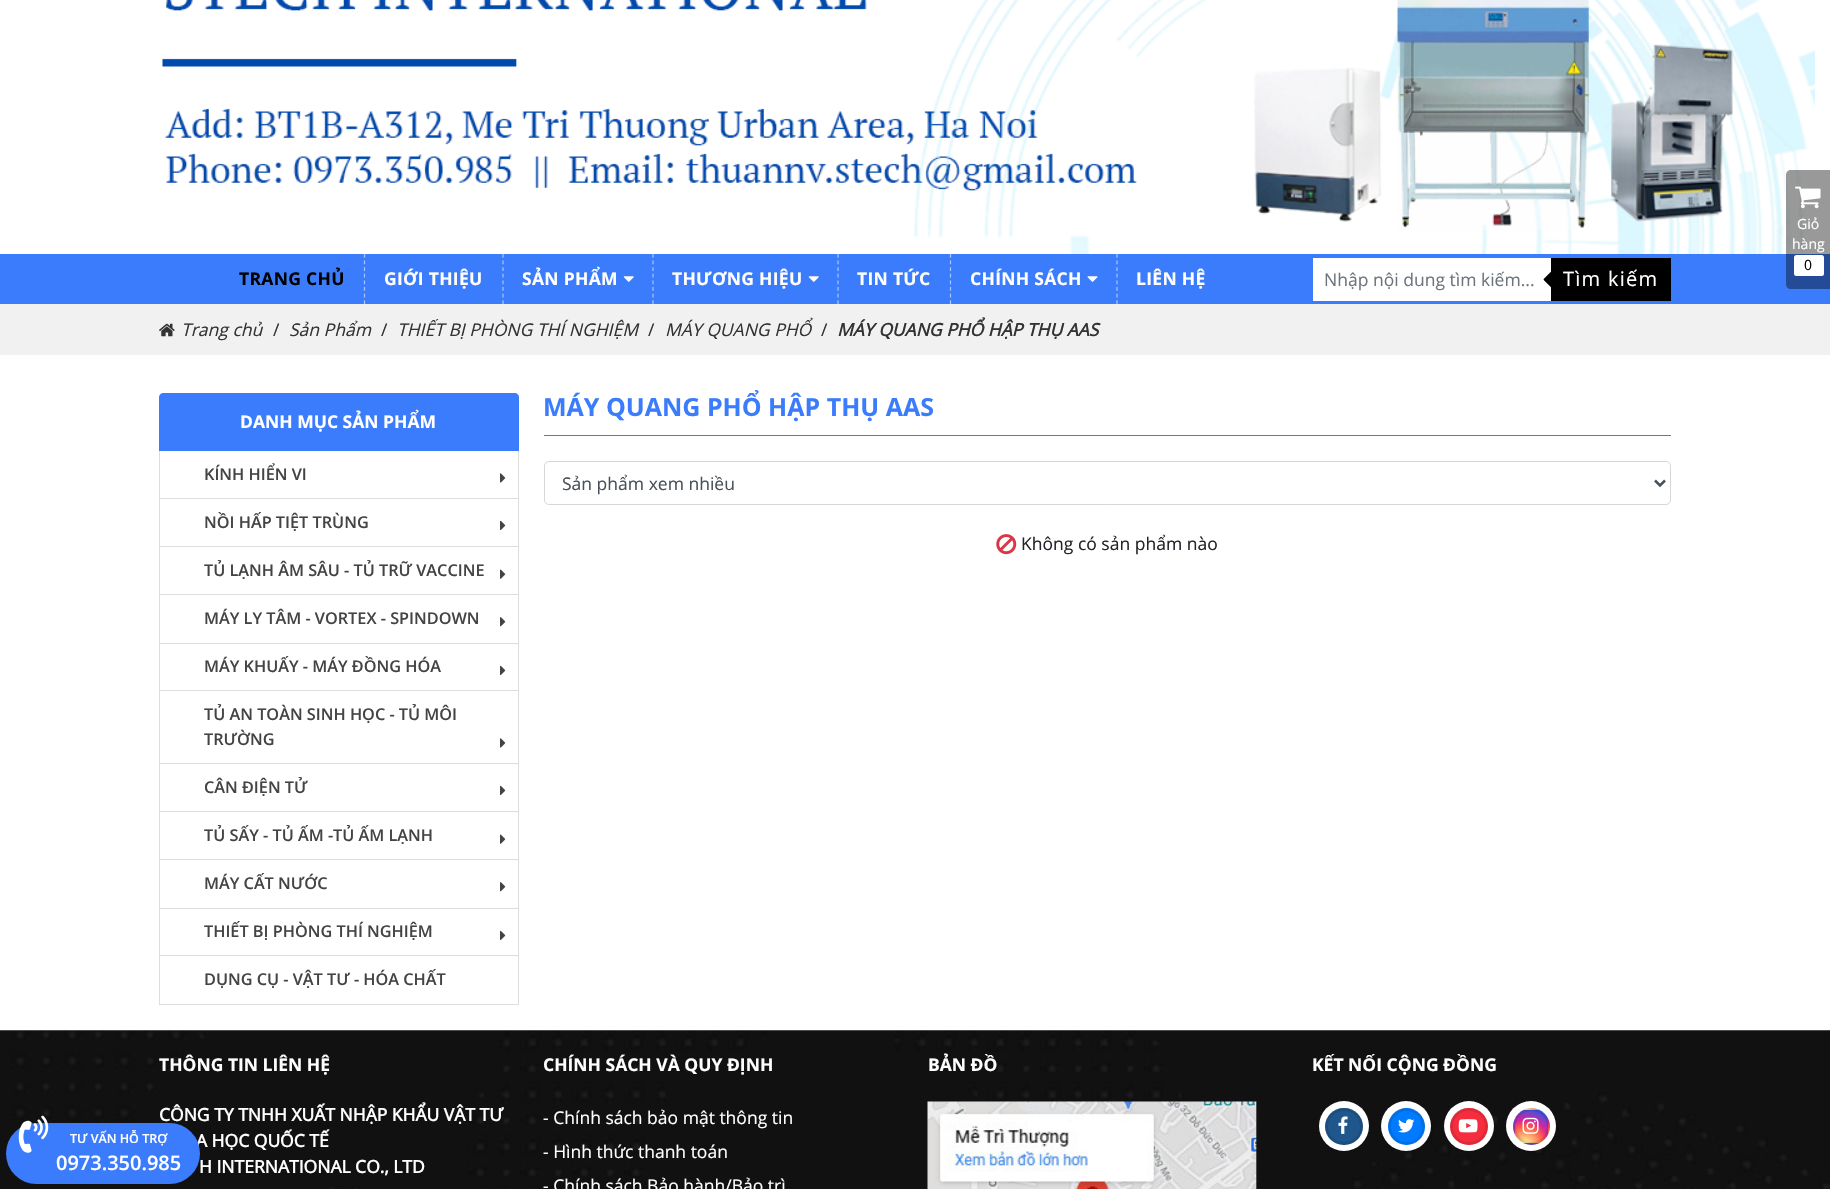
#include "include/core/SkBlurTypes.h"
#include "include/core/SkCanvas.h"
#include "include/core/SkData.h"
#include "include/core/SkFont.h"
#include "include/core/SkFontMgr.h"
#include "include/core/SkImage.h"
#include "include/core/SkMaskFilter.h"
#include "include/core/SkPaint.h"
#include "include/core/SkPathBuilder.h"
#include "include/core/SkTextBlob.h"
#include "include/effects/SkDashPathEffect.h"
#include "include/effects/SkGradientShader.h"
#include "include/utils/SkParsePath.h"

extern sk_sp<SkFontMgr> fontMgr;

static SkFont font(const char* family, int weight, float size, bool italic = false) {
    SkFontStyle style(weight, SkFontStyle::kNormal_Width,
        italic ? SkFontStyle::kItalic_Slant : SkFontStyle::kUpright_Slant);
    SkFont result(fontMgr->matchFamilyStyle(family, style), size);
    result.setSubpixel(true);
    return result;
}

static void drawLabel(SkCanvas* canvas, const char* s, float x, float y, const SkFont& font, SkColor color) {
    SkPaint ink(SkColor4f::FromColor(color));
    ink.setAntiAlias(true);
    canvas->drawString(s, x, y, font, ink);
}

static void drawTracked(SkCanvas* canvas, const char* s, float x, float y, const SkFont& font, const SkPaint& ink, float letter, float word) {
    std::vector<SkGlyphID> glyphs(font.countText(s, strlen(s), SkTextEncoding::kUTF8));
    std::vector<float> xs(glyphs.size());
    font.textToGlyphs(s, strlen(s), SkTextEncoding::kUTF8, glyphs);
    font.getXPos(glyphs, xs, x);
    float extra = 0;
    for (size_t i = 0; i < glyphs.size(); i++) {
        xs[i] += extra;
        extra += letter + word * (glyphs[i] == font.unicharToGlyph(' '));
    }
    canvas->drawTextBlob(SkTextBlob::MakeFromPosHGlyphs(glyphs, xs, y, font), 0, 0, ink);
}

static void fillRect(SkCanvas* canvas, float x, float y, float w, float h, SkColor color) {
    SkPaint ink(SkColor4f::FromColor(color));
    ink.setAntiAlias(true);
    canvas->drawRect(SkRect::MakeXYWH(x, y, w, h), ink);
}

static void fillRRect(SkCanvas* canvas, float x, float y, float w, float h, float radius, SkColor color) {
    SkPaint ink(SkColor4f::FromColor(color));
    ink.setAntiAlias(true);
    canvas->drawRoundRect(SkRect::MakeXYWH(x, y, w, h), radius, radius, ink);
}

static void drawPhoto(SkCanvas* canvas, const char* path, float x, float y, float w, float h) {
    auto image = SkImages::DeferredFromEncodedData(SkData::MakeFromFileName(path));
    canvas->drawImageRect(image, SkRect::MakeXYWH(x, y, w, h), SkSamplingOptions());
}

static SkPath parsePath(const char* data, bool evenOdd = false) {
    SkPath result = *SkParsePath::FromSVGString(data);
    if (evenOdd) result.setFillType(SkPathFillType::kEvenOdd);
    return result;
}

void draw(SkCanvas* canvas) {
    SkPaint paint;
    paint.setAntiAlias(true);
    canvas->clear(0xFFFFFFFF);
    drawPhoto(canvas, "assets/img1.png", 162, 0, 1653, 254);
    fillRect(canvas, 0, 254, 1830, 50, 0xFF3B7CFD);
    paint.setColor(0x66000000);
    canvas->drawPath(parsePath("M1791 170H1830V289H1791C1788 289 1786 287 1786 284V175C1786 172 1788 170 1791 170Z"), paint);
    drawPhoto(canvas, "assets/img2.png", 1795, 186, 26, 23);
    SkFont font1 = font("Open Sans", 400, 14);
    drawLabel(canvas, "Giỏ", 1797, 229, font1, 0xFFFFFFFF);
    drawLabel(canvas, "hàng", 1792, 249, font1, 0xFFFFFFFF);
    fillRRect(canvas, 1794, 255, 30, 21, 2.5f, 0xFFFFFFFF);
    drawLabel(canvas, "0", 1804, 270, font1, 0xFF000000);
    paint.setStroke(true);
    paint.setStrokeWidth(1.2f);
    paint.setColor(0xFFA9C5FE);
    paint.setPathEffect(SkDashPathEffect::Make({{3.75f, 2.86f}}, 0));
    canvas->drawPath(parsePath("M364.5 254V304"), paint);
    paint.setPathEffect(nullptr);
    SkFont font2 = font("Open Sans", 700, 17.5f);
    paint.setStroke(false);
    paint.setColor(0xFF000000);
    drawTracked(canvas, "TRANG CHỦ", 239, 285, font2, paint, 0.3f, 0);
    paint.setStroke(true);
    paint.setColor(0xFFA9C5FE);
    paint.setPathEffect(SkDashPathEffect::Make({{3.75f, 2.86f}}, 0));
    canvas->drawPath(parsePath("M503 254V304"), paint);
    paint.setPathEffect(nullptr);
    paint.setStroke(false);
    paint.setColor(0xFFFFFFFF);
    drawTracked(canvas, "GIỚI THIỆU", 384, 285, font2, paint, 0.3f, 0);
    paint.setStroke(true);
    paint.setColor(0xFFA9C5FE);
    paint.setPathEffect(SkDashPathEffect::Make({{3.75f, 2.86f}}, 0));
    canvas->drawPath(parsePath("M653 254V304"), paint);
    paint.setPathEffect(nullptr);
    paint.setStroke(false);
    paint.setColor(0xFFFFFFFF);
    drawTracked(canvas, "SẢN PHẨM", 522, 285, font2, paint, 0.3f, 0);
    drawPhoto(canvas, "assets/img3.png", 623, 276, 11, 6);
    paint.setStroke(true);
    paint.setColor(0xFFA9C5FE);
    paint.setPathEffect(SkDashPathEffect::Make({{3.75f, 2.86f}}, 0));
    canvas->drawPath(parsePath("M838 254V304"), paint);
    paint.setPathEffect(nullptr);
    paint.setStroke(false);
    paint.setColor(0xFFFFFFFF);
    drawTracked(canvas, "THƯƠNG HIỆU", 672, 285, font2, paint, 0.3f, 0);
    drawPhoto(canvas, "assets/img3.png", 808, 276, 11, 6);
    paint.setStroke(true);
    paint.setColor(0xFFA9C5FE);
    paint.setPathEffect(SkDashPathEffect::Make({{3.75f, 2.86f}}, 0));
    canvas->drawPath(parsePath("M950.5 254V304"), paint);
    paint.setPathEffect(nullptr);
    paint.setStroke(false);
    paint.setColor(0xFFFFFFFF);
    drawTracked(canvas, "TIN TỨC", 857, 285, font2, paint, 0.3f, 0);
    paint.setStroke(true);
    paint.setColor(0xFFA9C5FE);
    paint.setPathEffect(SkDashPathEffect::Make({{3.75f, 2.86f}}, 0));
    canvas->drawPath(parsePath("M1117 254V304"), paint);
    paint.setPathEffect(nullptr);
    paint.setStroke(false);
    paint.setColor(0xFFFFFFFF);
    drawTracked(canvas, "CHÍNH SÁCH", 970, 285, font2, paint, 0.3f, 0);
    drawPhoto(canvas, "assets/img4.png", 1087, 276, 11, 6);
    drawTracked(canvas, "LIÊN HỆ", 1136, 285, font2, paint, 0.3f, 0);
    fillRect(canvas, 1313, 258, 238, 43, 0xFFFFFFFF);
    SkFont font3 = font("Open Sans", 400, 17.5f);
    drawLabel(canvas, "Nhập nội dung tìm kiếm...", 1324, 286, font3, 0xFF6C757D);
    fillRect(canvas, 1551, 258, 120, 43, 0xFF000000);
    drawPhoto(canvas, "assets/img5.png", 1543, 271, 8, 17);
    SkFont font4 = font("Open Sans", 400, 20);
    drawTracked(canvas, "Tìm kiếm", 1563, 286, font4, paint, 1.25f, 0);
    fillRect(canvas, 0, 304, 1830, 51, 0xFFF1F1F1);
    drawPhoto(canvas, "assets/img6.png", 159, 323, 16, 14);
    SkFont font5 = font("Open Sans", 400, 17.5f, true);
    drawLabel(canvas, "Trang chủ", 181, 336, font5, 0xFF333333);
    drawLabel(canvas, "/", 273, 336, font3, 0xFF333333);
    drawLabel(canvas, "Sản Phẩm", 289, 336, font5, 0xFF333333);
    drawLabel(canvas, "/", 381, 336, font3, 0xFF333333);
    drawLabel(canvas, "THIẾT BỊ PHÒNG THÍ NGHIỆM", 397, 336, font5, 0xFF333333);
    drawLabel(canvas, "/", 648, 336, font3, 0xFF333333);
    drawLabel(canvas, "MÁY QUANG PHỔ", 665, 336, font5, 0xFF333333);
    drawLabel(canvas, "/", 821, 336, font3, 0xFF333333);
    SkFont font6 = font("Open Sans", 700, 17.5f, true);
    drawLabel(canvas, "MÁY QUANG PHỔ HẬP THỤ AAS", 837, 336, font6, 0xFF333333);
    paint.setColor(0xFF3B7CFD);
    canvas->drawPath(parsePath("M163 393H515C517 393 519 395 519 397V451H159V397C159 395 161 393 163 393Z"), paint);
    drawLabel(canvas, "DANH MỤC SẢN PHẨM", 240, 428, font2, 0xFFFFFFFF);
    fillRect(canvas, 518, 451, 1, 554, 0xFFDDDDDD);
    fillRect(canvas, 159, 498, 360, 1, 0xFFDDDDDD);
    fillRect(canvas, 159, 451, 1, 48, 0xFFDDDDDD);
    SkFont font7 = font("Open Sans", 600, 16.25f);
    drawLabel(canvas, "KÍNH HIỂN VI", 204, 480, font7, 0xFF444444);
    drawPhoto(canvas, "assets/img7.png", 500, 473, 6, 10);
    fillRect(canvas, 159, 546, 360, 1, 0xFFDDDDDD);
    fillRect(canvas, 159, 499, 1, 49, 0xFFDDDDDD);
    drawLabel(canvas, "NỒI HẤP TIỆT TRÙNG", 204, 528, font7, 0xFF444444);
    drawPhoto(canvas, "assets/img8.png", 500, 520, 6, 10);
    fillRect(canvas, 159, 594, 360, 1, 0xFFDDDDDD);
    fillRect(canvas, 159, 548, 1, 47, 0xFFDDDDDD);
    drawLabel(canvas, "TỦ LẠNH ÂM SÂU - TỦ TRỮ VACCINE", 204, 576, font7, 0xFF444444);
    drawPhoto(canvas, "assets/img9.png", 500, 569, 6, 10);
    fillRect(canvas, 159, 643, 360, 1, 0xFFDDDDDD);
    fillRect(canvas, 159, 595, 1, 49, 0xFFDDDDDD);
    drawLabel(canvas, "MÁY LY TÂM - VORTEX - SPINDOWN", 204, 624, font7, 0xFF444444);
    drawPhoto(canvas, "assets/img10.png", 500, 617, 6, 10);
    fillRect(canvas, 159, 690, 360, 1, 0xFFDDDDDD);
    fillRect(canvas, 159, 644, 1, 47, 0xFFDDDDDD);
    drawLabel(canvas, "MÁY KHUẤY - MÁY ĐỒNG HÓA", 204, 672, font7, 0xFF444444);
    drawPhoto(canvas, "assets/img8.png", 500, 665, 6, 10);
    fillRect(canvas, 159, 763, 360, 1, 0xFFDDDDDD);
    fillRect(canvas, 159, 691, 1, 73, 0xFFDDDDDD);
    drawLabel(canvas, "TỦ AN TOÀN SINH HỌC - TỦ MÔI", 204, 720, font7, 0xFF444444);
    drawLabel(canvas, "TRƯỜNG", 204, 745, font7, 0xFF444444);
    drawPhoto(canvas, "assets/img7.png", 500, 738, 6, 10);
    fillRect(canvas, 159, 811, 360, 1, 0xFFDDDDDD);
    fillRect(canvas, 159, 764, 1, 49, 0xFFDDDDDD);
    drawLabel(canvas, "CÂN ĐIỆN TỬ", 204, 793, font7, 0xFF444444);
    drawPhoto(canvas, "assets/img8.png", 500, 785, 6, 10);
    fillRect(canvas, 159, 859, 360, 1, 0xFFDDDDDD);
    fillRect(canvas, 159, 813, 1, 47, 0xFFDDDDDD);
    drawLabel(canvas, "TỦ SẤY - TỦ ẤM -TỦ ẤM LẠNH", 204, 841, font7, 0xFF444444);
    drawPhoto(canvas, "assets/img9.png", 500, 834, 6, 10);
    fillRect(canvas, 159, 908, 360, 1, 0xFFDDDDDD);
    fillRect(canvas, 159, 860, 1, 49, 0xFFDDDDDD);
    drawLabel(canvas, "MÁY CẤT NƯỚC", 204, 889, font7, 0xFF444444);
    drawPhoto(canvas, "assets/img10.png", 500, 882, 6, 10);
    fillRect(canvas, 159, 955, 360, 1, 0xFFDDDDDD);
    fillRect(canvas, 159, 909, 1, 47, 0xFFDDDDDD);
    drawLabel(canvas, "THIẾT BỊ PHÒNG THÍ NGHIỆM", 204, 937, font7, 0xFF444444);
    drawPhoto(canvas, "assets/img8.png", 500, 930, 6, 10);
    fillRect(canvas, 159, 1004, 360, 1, 0xFFDDDDDD);
    fillRect(canvas, 159, 956, 1, 49, 0xFFDDDDDD);
    drawLabel(canvas, "DỤNG CỤ - VẬT TƯ - HÓA CHẤT", 204, 985, font7, 0xFF444444);
    fillRect(canvas, 544, 435, 1127, 1, 0xFF3B7CFD);
    SkFont font8 = font("Open Sans", 700, 25);
    drawLabel(canvas, "MÁY QUANG PHỔ HẬP THỤ AAS", 543, 416, font8, 0xFF3B7CFD);
    paint.setStroke(true);
    paint.setStrokeWidth(1);
    paint.setColor(0xFFD7D7D7);
    canvas->drawRoundRect(SkRect::MakeXYWH(544.5f, 461.5f, 1126, 43), 4.5f, 4.5f, paint);
    paint.setStrokeWidth(2.5f);
    paint.setColor(0xFF495057);
    canvas->drawPath(parsePath("M1655 480.5L1660 485.5L1665 480.5"), paint);
    drawLabel(canvas, "Sản phẩm xem nhiều", 562, 490, font3, 0xFF495057);
    drawPhoto(canvas, "assets/img11.png", 996, 534, 21, 21);
    drawLabel(canvas, "Không có sản phẩm nào", 1021, 550, font3, 0xFF212529);
    drawPhoto(canvas, "assets/img13.png", 0, 1030, 1830, 159);
    SkFont font9 = font("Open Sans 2", 700, 17.5f);
    drawLabel(canvas, "CÔNG TY TNHH XUẤT NHẬP KHẨU VẬT TƯ", 159, 1121, font9, 0xFFFFFFFF);
    drawLabel(canvas, "A HỌC QUỐC TẾ", 196, 1147, font9, 0xFFFFFFFF);
    fillRRect(canvas, 6, 1123, 194, 61, 30.5f, 0xFF3B7CFD);
    drawPhoto(canvas, "assets/img12.png", 18, 1115, 31, 38);
    SkFont font10 = font("Open Sans", 600, 12.5f);
    drawLabel(canvas, "TƯ VẤN HỖ TRỢ", 70, 1143, font10, 0xFFFFFFFF);
    SkFont font11 = font("Open Sans", 600, 20);
    drawLabel(canvas, "0973.350.985", 56, 1170, font11, 0xFFFFFFFF);
    drawLabel(canvas, "THÔNG TIN LIÊN HỆ", 159, 1071, font2, 0xFFFFFFFF);
    drawLabel(canvas, "H INTERNATIONAL CO., LTD", 199, 1173, font9, 0xFFFFFFFF);
    drawLabel(canvas, "CHÍNH SÁCH VÀ QUY ĐỊNH", 543, 1071, font2, 0xFFFFFFFF);
    drawLabel(canvas, "- Chính sách bảo mật thông tin", 543, 1124, font3, 0xFFFFFFFF);
    drawLabel(canvas, "- Hình thức thanh toán", 543, 1158, font3, 0xFFFFFFFF);
    drawLabel(canvas, "- Chính sách Bảo hành/Bảo trì", 543, 1192, font3, 0xFFFFFFFF);
    drawLabel(canvas, "BẢN ĐỒ", 928, 1071, font2, 0xFFFFFFFF);
    drawPhoto(canvas, "assets/img14.png", 927, 1101, 331, 88);
    drawLabel(canvas, "KẾT NỐI CỘNG ĐỒNG", 1312, 1071, font2, 0xFFFFFFFF);
    paint.setStroke(false);
    paint.setColor(0xFFFFFFFF);
    canvas->drawCircle(1344, 1126, 25, paint);
    fillRRect(canvas, 1325, 1108, 38, 37, 18.5f, 0xFF1F568B);
    paint.setStroke(true);
    paint.setStrokeWidth(3);
    paint.setColor(0x1A000000);
    canvas->drawRoundRect(SkRect::MakeXYWH(1326.5f, 1109.5f, 35, 34), 17, 17, paint);
    drawPhoto(canvas, "assets/img15.png", 1338, 1116, 10, 18);
    paint.setStroke(false);
    paint.setColor(0xFFFFFFFF);
    canvas->drawCircle(1406, 1126, 25, paint);
    paint.setColor(0xFF007BFF);
    canvas->drawCircle(1406.5f, 1126.5f, 18.5f, paint);
    paint.setStroke(true);
    paint.setColor(0x1A000000);
    canvas->drawCircle(1406.5f, 1126.5f, 17, paint);
    drawPhoto(canvas, "assets/img16.png", 1398, 1119, 17, 14);
    paint.setStroke(false);
    paint.setColor(0xFFFFFFFF);
    canvas->drawCircle(1469, 1126, 25, paint);
    fillRRect(canvas, 1450, 1108, 38, 37, 18.5f, 0xFFF62D3E);
    paint.setStroke(true);
    paint.setColor(0x1A000000);
    canvas->drawRoundRect(SkRect::MakeXYWH(1451.5f, 1109.5f, 35, 34), 17, 17, paint);
    drawPhoto(canvas, "assets/img17.png", 1458, 1119, 20, 14);
    paint.setStroke(false);
    paint.setColor(0xFFFFFFFF);
    canvas->drawCircle(1531, 1126, 25, paint);
    canvas->save();
    canvas->clipPath(parsePath("M1531.5 1108C1541.5 1108 1550 1116.5 1550 1126.5C1550 1136.5 1541.5 1145 1531.5 1145C1521.5 1145 1513 1136.5 1513 1126.5C1513 1116.5 1521.5 1108 1531.5 1108Z"), true);
    {
        const SkColor colors[] = {0xFFFDF497, 0xFFFDF497, 0xFFFD5949, 0xFFD6249F, 0xFF285AEB};
        const float stops[] = {0, 0.05f, 0.45f, 0.6f, 0.9f};
        paint.setShader(SkGradientShader::MakeRadial({1525, 1112}, 42, colors, stops, 5, SkTileMode::kClamp));
        paint.setAlpha(255);
    }
    canvas->drawRect(SkRect::MakeXYWH(1515, 1108, 33, 2), paint);
    {
        const SkColor colors[] = {0xFFFDF497, 0xFFFDF497, 0xFFFD5949, 0xFFD6249F, 0xFF285AEB};
        const float stops[] = {0, 0.05f, 0.45f, 0.6f, 0.9f};
        paint.setShader(SkGradientShader::MakeRadial({1492, 1145}, 42, colors, stops, 5, SkTileMode::kClamp));
        paint.setAlpha(255);
    }
    canvas->drawRect(SkRect::MakeXYWH(1513, 1110, 2, 33), paint);
    {
        const SkColor colors[] = {0xFFFDF497, 0xFFFDF497, 0xFFFD5949, 0xFFD6249F, 0xFF285AEB};
        const float stops[] = {0, 0.05f, 0.45f, 0.6f, 0.9f};
        paint.setShader(SkGradientShader::MakeRadial({1525, 1145}, 42, colors, stops, 5, SkTileMode::kClamp));
        paint.setAlpha(255);
    }
    canvas->drawRect(SkRect::MakeXYWH(1515, 1110, 33, 33), paint);
    {
        const SkColor colors[] = {0xFFFDF497, 0xFFFDF497, 0xFFFD5949, 0xFFD6249F, 0xFF285AEB};
        const float stops[] = {0, 0.05f, 0.45f, 0.6f, 0.9f};
        paint.setShader(SkGradientShader::MakeRadial({1557, 1145}, 42, colors, stops, 5, SkTileMode::kClamp));
        paint.setAlpha(255);
    }
    canvas->drawRect(SkRect::MakeXYWH(1548, 1110, 2, 33), paint);
    {
        const SkColor colors[] = {0xFFFDF497, 0xFFFDF497, 0xFFFD5949, 0xFFD6249F, 0xFF285AEB};
        const float stops[] = {0, 0.05f, 0.45f, 0.6f, 0.9f};
        paint.setShader(SkGradientShader::MakeRadial({1525, 1177}, 42, colors, stops, 5, SkTileMode::kClamp));
        paint.setAlpha(255);
    }
    canvas->drawRect(SkRect::MakeXYWH(1515, 1143, 33, 2), paint);
    canvas->restore();
    paint.setStroke(true);
    paint.setShader(nullptr);
    paint.setColor(0x1A000000);
    canvas->drawCircle(1531.5f, 1126.5f, 17, paint);
    drawPhoto(canvas, "assets/img18.png", 1522, 1117, 17, 17);
}
